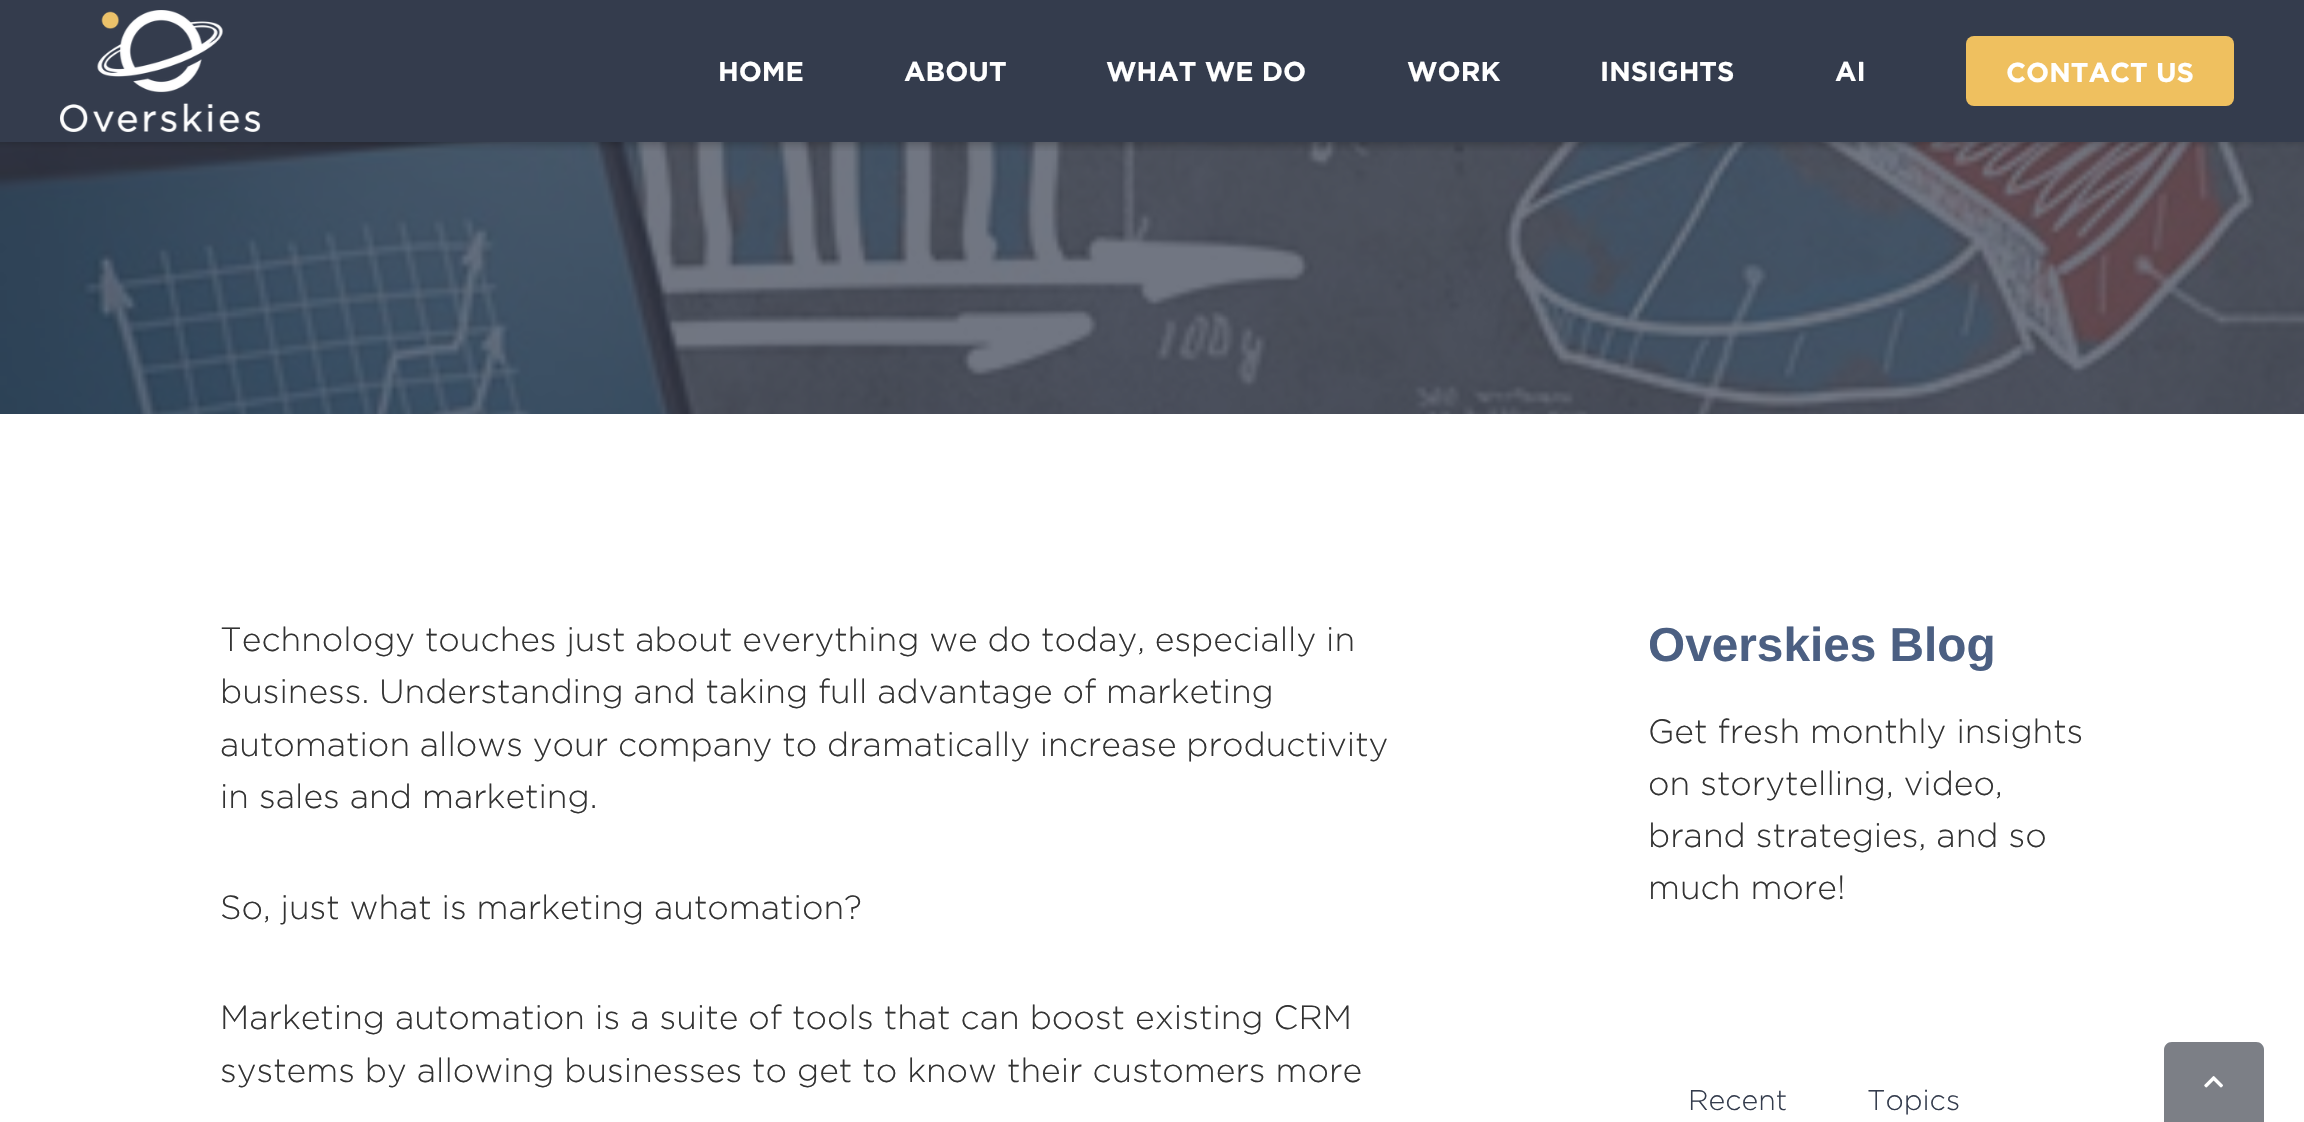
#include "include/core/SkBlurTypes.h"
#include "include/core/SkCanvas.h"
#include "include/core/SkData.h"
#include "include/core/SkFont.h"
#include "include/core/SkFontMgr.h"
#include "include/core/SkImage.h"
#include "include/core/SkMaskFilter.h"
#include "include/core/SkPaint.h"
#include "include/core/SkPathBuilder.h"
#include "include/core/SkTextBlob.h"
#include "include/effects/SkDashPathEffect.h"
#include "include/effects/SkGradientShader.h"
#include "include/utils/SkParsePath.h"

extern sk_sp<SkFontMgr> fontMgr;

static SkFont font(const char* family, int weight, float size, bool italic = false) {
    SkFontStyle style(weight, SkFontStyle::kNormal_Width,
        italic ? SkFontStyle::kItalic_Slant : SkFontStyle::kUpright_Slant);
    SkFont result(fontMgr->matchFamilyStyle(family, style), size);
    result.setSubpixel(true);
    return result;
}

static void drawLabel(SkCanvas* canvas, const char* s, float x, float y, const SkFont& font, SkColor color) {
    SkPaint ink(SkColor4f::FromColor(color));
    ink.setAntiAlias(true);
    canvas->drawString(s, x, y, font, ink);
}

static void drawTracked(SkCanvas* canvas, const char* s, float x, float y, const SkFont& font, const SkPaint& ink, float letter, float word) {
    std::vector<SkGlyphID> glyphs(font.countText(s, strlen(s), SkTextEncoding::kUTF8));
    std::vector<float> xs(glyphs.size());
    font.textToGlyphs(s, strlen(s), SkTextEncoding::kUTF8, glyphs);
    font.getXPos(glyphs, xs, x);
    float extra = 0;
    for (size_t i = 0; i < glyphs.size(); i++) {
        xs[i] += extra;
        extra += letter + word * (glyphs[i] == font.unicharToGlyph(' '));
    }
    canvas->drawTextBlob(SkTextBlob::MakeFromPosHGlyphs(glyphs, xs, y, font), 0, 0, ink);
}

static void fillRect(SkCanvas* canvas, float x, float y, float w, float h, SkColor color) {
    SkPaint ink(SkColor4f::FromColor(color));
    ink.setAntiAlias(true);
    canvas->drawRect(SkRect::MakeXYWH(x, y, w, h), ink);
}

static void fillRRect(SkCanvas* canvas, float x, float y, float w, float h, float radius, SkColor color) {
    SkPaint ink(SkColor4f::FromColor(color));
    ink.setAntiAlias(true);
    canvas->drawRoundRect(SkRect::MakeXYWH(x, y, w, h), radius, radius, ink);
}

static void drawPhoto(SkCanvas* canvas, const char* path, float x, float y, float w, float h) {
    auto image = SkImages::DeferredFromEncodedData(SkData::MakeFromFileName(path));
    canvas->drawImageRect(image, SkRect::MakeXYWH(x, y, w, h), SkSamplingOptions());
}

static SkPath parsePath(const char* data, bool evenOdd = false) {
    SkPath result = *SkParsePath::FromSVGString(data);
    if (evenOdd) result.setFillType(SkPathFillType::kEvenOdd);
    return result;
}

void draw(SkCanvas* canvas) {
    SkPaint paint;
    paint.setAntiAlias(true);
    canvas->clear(0xFFFFFFFF);
    fillRect(canvas, 0, 0, 2304, 142, 0xFF343C4D);
    drawPhoto(canvas, "assets/img1.png", 60, 10, 201, 122);
    SkFont font1 = font("Gotham", 700, 27.25f);
    drawLabel(canvas, "HOME", 718, 81, font1, 0xFFFFFFFF);
    drawLabel(canvas, "ABOUT", 904, 81, font1, 0xFFFFFFFF);
    drawLabel(canvas, "WHAT WE DO", 1106, 81, font1, 0xFFFFFFFF);
    drawLabel(canvas, "WORK", 1407, 81, font1, 0xFFFFFFFF);
    drawLabel(canvas, "INSIGHTS", 1600, 81, font1, 0xFFFFFFFF);
    drawLabel(canvas, "AI", 1835, 81, font1, 0xFFFFFFFF);
    fillRRect(canvas, 1966, 36, 268, 70, 8, 0xFFEFC05F);
    drawLabel(canvas, "CONTACT US", 2006, 82, font1, 0xFFFFFFFF);
    drawPhoto(canvas, "assets/img3.png", 0, 142, 2304, 272);
    fillRect(canvas, 0, 142, 2304, 272, 0xB3343C4D);
    drawPhoto(canvas, "assets/img2.png", 0, 142, 2304, 9);
    SkFont font2 = font("Gotham", 300, 33.6f);
    paint.setColor(0xFF333333);
    drawTracked(canvas, "Technology touches just about everything we do today, especially in", 220, 651, font2, paint, 0, -0.25f);
    drawTracked(canvas, "business. Understanding and taking full advantage of marketing", 220, 703, font2, paint, 0, -0.25f);
    drawTracked(canvas, "automation allows your company to dramatically increase productivity", 220, 756, font2, paint, 0, -0.25f);
    drawLabel(canvas, "in sales and marketing.", 220, 808, font2, 0xFF333333);
    drawTracked(canvas, "So, just what is marketing automation?", 220, 919, font2, paint, 0, -0.25f);
    drawLabel(canvas, "Marketing automation is a suite of tools that can boost existing CRM", 220, 1029, font2, 0xFF333333);
    drawTracked(canvas, "systems by allowing businesses to get to know their customers more", 220, 1082, font2, paint, 0, -0.1f);
    SkFont font3 = font("Liberation Sans", 700, 47.75f);
    drawLabel(canvas, "Overskies Blog", 1648, 661, font3, 0xFF4B5F82);
    drawLabel(canvas, "Get fresh monthly insights", 1648, 743, font2, 0xFF333333);
    drawLabel(canvas, "on storytelling, video,", 1648, 795, font2, 0xFF333333);
    drawLabel(canvas, "brand strategies, and so", 1648, 847, font2, 0xFF333333);
    drawLabel(canvas, "much more!", 1648, 899, font2, 0xFF333333);
    SkFont font4 = font("Gotham", 300, 28.5f);
    drawLabel(canvas, "Recent", 1688, 1110, font4, 0xFF343C4D);
    drawLabel(canvas, "Topics", 1867, 1110, font4, 0xFF343C4D);
    paint.setColor(0xFF858A94);
    canvas->drawPath(parsePath("M2172 1042H2256C2260.5 1042 2264 1045.5 2264 1050V1122H2164V1050C2164 1045.5 2167.5 1042 2172 1042Z"), paint);
    paint.setColor(0x4D666666);
    canvas->drawPath(parsePath("M2172 1042H2256C2260.5 1042 2264 1045.5 2264 1050V1122H2164V1050C2164 1045.5 2167.5 1042 2172 1042Z"), paint);
    drawPhoto(canvas, "assets/img4.png", 2204, 1076, 19, 12);
}
